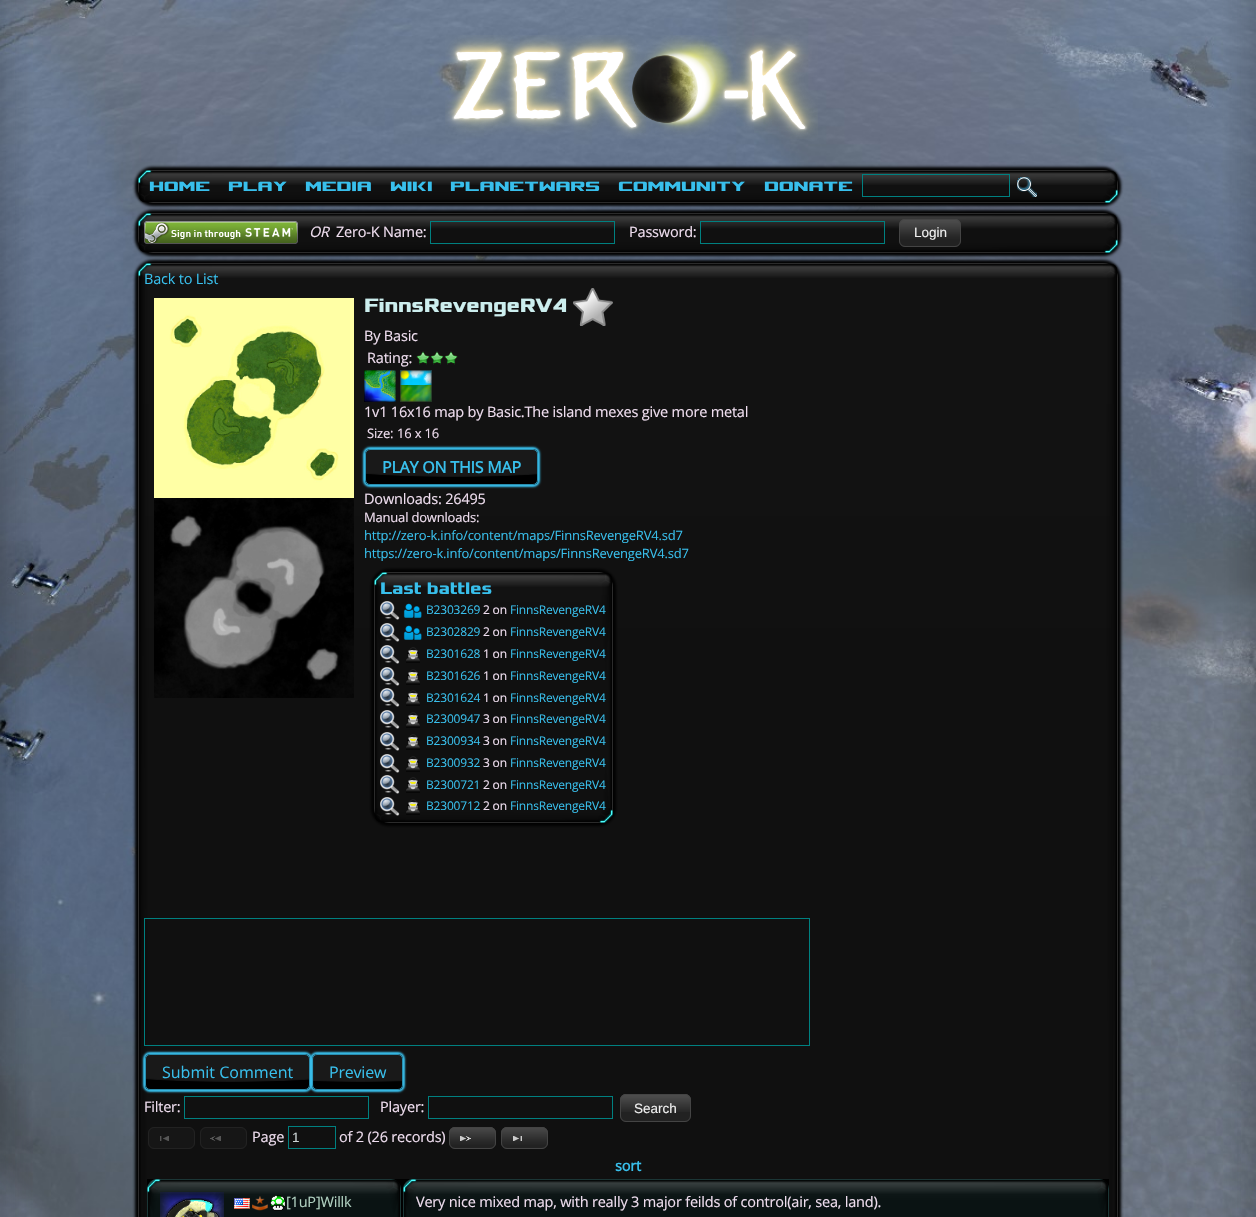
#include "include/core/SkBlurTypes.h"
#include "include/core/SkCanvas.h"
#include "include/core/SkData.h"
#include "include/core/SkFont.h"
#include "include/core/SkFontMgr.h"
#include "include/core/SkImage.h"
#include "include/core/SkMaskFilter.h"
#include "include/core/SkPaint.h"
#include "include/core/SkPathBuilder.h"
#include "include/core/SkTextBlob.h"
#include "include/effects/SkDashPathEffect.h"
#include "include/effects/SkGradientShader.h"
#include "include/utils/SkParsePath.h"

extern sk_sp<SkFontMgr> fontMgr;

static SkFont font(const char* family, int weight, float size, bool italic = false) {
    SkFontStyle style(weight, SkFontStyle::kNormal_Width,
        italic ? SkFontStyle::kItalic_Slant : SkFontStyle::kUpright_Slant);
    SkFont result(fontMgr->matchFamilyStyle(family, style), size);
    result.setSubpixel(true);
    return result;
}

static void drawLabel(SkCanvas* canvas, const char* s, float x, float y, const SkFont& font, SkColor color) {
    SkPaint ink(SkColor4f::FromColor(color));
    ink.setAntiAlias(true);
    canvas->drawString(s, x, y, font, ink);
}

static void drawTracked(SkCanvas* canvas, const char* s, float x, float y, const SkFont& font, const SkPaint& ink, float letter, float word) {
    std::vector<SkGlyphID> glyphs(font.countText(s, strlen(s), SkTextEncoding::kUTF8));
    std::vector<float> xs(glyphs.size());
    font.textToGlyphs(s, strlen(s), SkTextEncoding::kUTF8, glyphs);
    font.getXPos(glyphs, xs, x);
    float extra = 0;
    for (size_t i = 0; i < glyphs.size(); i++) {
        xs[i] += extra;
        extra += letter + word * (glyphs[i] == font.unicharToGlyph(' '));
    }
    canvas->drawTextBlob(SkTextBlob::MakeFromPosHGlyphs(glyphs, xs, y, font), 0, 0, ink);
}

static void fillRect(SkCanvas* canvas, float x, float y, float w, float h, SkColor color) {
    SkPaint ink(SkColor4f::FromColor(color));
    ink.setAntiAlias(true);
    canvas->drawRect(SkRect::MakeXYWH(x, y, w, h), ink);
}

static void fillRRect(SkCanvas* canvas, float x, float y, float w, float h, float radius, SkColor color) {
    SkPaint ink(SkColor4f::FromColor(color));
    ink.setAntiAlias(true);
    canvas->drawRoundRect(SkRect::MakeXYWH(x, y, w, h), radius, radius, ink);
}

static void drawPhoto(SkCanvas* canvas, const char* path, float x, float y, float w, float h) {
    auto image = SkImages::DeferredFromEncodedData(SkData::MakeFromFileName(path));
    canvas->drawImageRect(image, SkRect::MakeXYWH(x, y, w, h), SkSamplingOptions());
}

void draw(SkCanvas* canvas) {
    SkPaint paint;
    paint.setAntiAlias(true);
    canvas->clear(0xFFFFFFFF);
    drawPhoto(canvas, "assets/img1.png", 0, 0, 1256, 1217);
    drawPhoto(canvas, "assets/img2.png", 0, 0, 1256, 1217);
    drawPhoto(canvas, "assets/img3.png", 445, 35, 373, 104);
    paint.setColor(0xFF000000);
    paint.setMaskFilter(SkMaskFilter::MakeBlur(kNormal_SkBlurStyle, 1.5f));
    canvas->drawRoundRect(SkRect::MakeXYWH(135, 167, 986, 39), 18, 18, paint);
    paint.setMaskFilter(nullptr);
    fillRRect(canvas, 138, 170, 980, 33, 15, 0xFF333333);
    drawPhoto(canvas, "assets/img4.png", 138, 170, 980, 33);
    SkFont font1 = font("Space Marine", 400, 15);
    paint.setColor(0xFF38BFEC);
    drawTracked(canvas, "Home", 149, 192, font1, paint, -0.2f, 0);
    drawTracked(canvas, "Play", 228, 192, font1, paint, -0.2f, 0);
    drawTracked(canvas, "Media", 305, 192, font1, paint, -0.2f, 0);
    drawTracked(canvas, "Wiki", 390, 192, font1, paint, -0.2f, 0);
    drawTracked(canvas, "PlanetWars", 450, 192, font1, paint, -0.2f, 0);
    drawTracked(canvas, "Community", 618, 192, font1, paint, -0.2f, 0);
    drawTracked(canvas, "Donate", 764, 192, font1, paint, -0.2f, 0);
    paint.setStroke(true);
    paint.setStrokeWidth(1);
    paint.setColor(0xFF008080);
    canvas->drawRect(SkRect::MakeXYWH(862.5f, 174.5f, 147, 22), paint);
    drawPhoto(canvas, "assets/img5.png", 1017, 177, 20, 20);
    paint.setStroke(false);
    paint.setColor(0xFF000000);
    paint.setMaskFilter(SkMaskFilter::MakeBlur(kNormal_SkBlurStyle, 1.5f));
    canvas->drawRoundRect(SkRect::MakeXYWH(135, 210, 986, 46), 18, 18, paint);
    paint.setMaskFilter(nullptr);
    fillRRect(canvas, 138, 213, 980, 40, 15, 0xFF333333);
    drawPhoto(canvas, "assets/img6.png", 138, 213, 980, 40);
    drawPhoto(canvas, "assets/img7.png", 144, 221, 154, 23);
    SkFont font2 = font("Open Sans", 400, 14.5f, true);
    paint.setColor(0xFFEEDDEE);
    drawTracked(canvas, "OR", 309, 237, font2, paint, -0.2f, 0);
    SkFont font3 = font("Open Sans", 400, 14.5f);
    drawTracked(canvas, "Zero-K Name:", 336, 237, font3, paint, -0.2f, 0);
    paint.setStroke(true);
    paint.setColor(0xFF008080);
    canvas->drawRect(SkRect::MakeXYWH(430.5f, 221.5f, 184, 22), paint);
    paint.setStroke(false);
    paint.setColor(0xFFEEDDEE);
    drawTracked(canvas, "Password:", 629, 237, font3, paint, -0.2f, 0);
    paint.setStroke(true);
    paint.setColor(0xFF008080);
    canvas->drawRect(SkRect::MakeXYWH(700.5f, 221.5f, 184, 22), paint);
    drawPhoto(canvas, "assets/img8.png", 899, 219, 62, 28);
    paint.setColor(0xFF444444);
    canvas->drawRoundRect(SkRect::MakeXYWH(899.5f, 219.5f, 61, 27), 5.5f, 5.5f, paint);
    SkFont font4 = font("Liberation Sans", 400, 13.5f);
    drawLabel(canvas, "Login", 914, 237, font4, 0xFFEEEEEE);
    paint.setStroke(false);
    paint.setColor(0xFF000000);
    paint.setMaskFilter(SkMaskFilter::MakeBlur(kNormal_SkBlurStyle, 1.5f));
    canvas->drawRoundRect(SkRect::MakeXYWH(135, 260, 986, 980), 18, 18, paint);
    paint.setMaskFilter(nullptr);
    fillRRect(canvas, 138, 263, 980, 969, 15, 0xFF333333);
    drawPhoto(canvas, "assets/img9.png", 138, 263, 980, 954);
    paint.setColor(0xFF38BFEC);
    drawTracked(canvas, "Back to List", 144, 284, font3, paint, -0.2f, 0);
    drawPhoto(canvas, "assets/img10.png", 154, 298, 200, 200);
    drawPhoto(canvas, "assets/img11.png", 154, 498, 200, 200);
    SkFont font5 = font("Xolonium", 700, 20.25f);
    paint.setColor(0xFFCCEEEE);
    drawTracked(canvas, "FinnsRevengeRV4", 364, 312, font5, paint, -0.2f, 0);
    drawPhoto(canvas, "assets/img12.png", 573, 288, 40, 38);
    paint.setColor(0xFFEEDDEE);
    drawTracked(canvas, "By Basic", 364, 341, font3, paint, -0.2f, 0);
    drawTracked(canvas, "Rating:", 367, 363, font3, paint, -0.2f, 0);
    drawPhoto(canvas, "assets/img13.png", 416, 351, 42, 14);
    drawPhoto(canvas, "assets/img14.png", 364, 370, 32, 32);
    drawPhoto(canvas, "assets/img15.png", 400, 370, 32, 32);
    drawTracked(canvas, "1v1 16x16 map by Basic.The island mexes give more metal", 364, 417, font3, paint, -0.2f, 0);
    SkFont font6 = font("Open Sans", 400, 13);
    drawTracked(canvas, "Size:", 367, 438, font6, paint, -0.2f, 0);
    drawTracked(canvas, "16 x 16", 397, 438, font6, paint, -0.2f, 0);
    paint.setColor(0xFF38BFEC);
    paint.setMaskFilter(SkMaskFilter::MakeBlur(kNormal_SkBlurStyle, 1));
    canvas->drawRoundRect(SkRect::MakeXYWH(363, 447, 177, 40), 7, 7, paint);
    paint.setMaskFilter(nullptr);
    drawPhoto(canvas, "assets/img16.png", 365, 449, 173, 36);
    paint.setStroke(true);
    paint.setColor(0xFF2A8EAF);
    canvas->drawRoundRect(SkRect::MakeXYWH(365.5f, 449.5f, 172, 35), 4.5f, 4.5f, paint);
    SkFont font7 = font("Open Sans", 700, 16);
    paint.setStroke(false);
    paint.setColor(0xFF38BFEC);
    drawTracked(canvas, "PLAY ON THIS MAP", 382, 473, font7, paint, -0.2f, 0);
    paint.setColor(0xFFEEDDEE);
    drawTracked(canvas, "Downloads: 26495", 364, 504, font3, paint, -0.2f, 0);
    drawTracked(canvas, "Manual downloads:", 364, 522, font6, paint, -0.2f, 0);
    paint.setColor(0xFF38BFEC);
    drawTracked(canvas, "http://zero-k.info/content/maps/FinnsRevengeRV4.sd7", 364, 540, font6, paint, -0.2f, 0);
    drawTracked(canvas, "https://zero-k.info/content/maps/FinnsRevengeRV4.sd7", 364, 558, font6, paint, -0.2f, 0);
    paint.setColor(0xFF000000);
    paint.setMaskFilter(SkMaskFilter::MakeBlur(kNormal_SkBlurStyle, 1.5f));
    canvas->drawRoundRect(SkRect::MakeXYWH(371, 569, 245, 257), 18, 18, paint);
    paint.setMaskFilter(nullptr);
    fillRRect(canvas, 374, 572, 239, 251, 15, 0xFF333333);
    drawPhoto(canvas, "assets/img17.png", 374, 572, 239, 251);
    SkFont font8 = font("Xolonium", 700, 17.5f);
    paint.setColor(0xFF38BFEC);
    drawTracked(canvas, "Last battles", 380, 594, font8, paint, -0.2f, 0);
    drawPhoto(canvas, "assets/img18.png", 380, 601, 20, 19);
    drawPhoto(canvas, "assets/img19.png", 403, 603, 19, 15);
    SkFont font9 = font("Open Sans", 400, 12);
    drawTracked(canvas, "B2303269", 426, 614, font9, paint, -0.2f, 0);
    paint.setColor(0xFFEEDDEE);
    drawTracked(canvas, "2 on", 483, 614, font9, paint, -0.2f, 0);
    paint.setColor(0xFF38BFEC);
    drawTracked(canvas, "FinnsRevengeRV4", 510, 614, font9, paint, -0.2f, 0);
    drawPhoto(canvas, "assets/img20.png", 380, 623, 20, 19);
    drawPhoto(canvas, "assets/img21.png", 403, 625, 19, 15);
    drawTracked(canvas, "B2302829", 426, 636, font9, paint, -0.2f, 0);
    paint.setColor(0xFFEEDDEE);
    drawTracked(canvas, "2 on", 483, 636, font9, paint, -0.2f, 0);
    paint.setColor(0xFF38BFEC);
    drawTracked(canvas, "FinnsRevengeRV4", 510, 636, font9, paint, -0.2f, 0);
    drawPhoto(canvas, "assets/img22.png", 380, 645, 20, 19);
    drawPhoto(canvas, "assets/img23.png", 406, 647, 14, 16);
    drawTracked(canvas, "B2301628", 426, 658, font9, paint, -0.2f, 0);
    paint.setColor(0xFFEEDDEE);
    drawTracked(canvas, "1 on", 483, 658, font9, paint, -0.2f, 0);
    paint.setColor(0xFF38BFEC);
    drawTracked(canvas, "FinnsRevengeRV4", 510, 658, font9, paint, -0.2f, 0);
    drawPhoto(canvas, "assets/img24.png", 380, 667, 20, 19);
    drawPhoto(canvas, "assets/img23.png", 406, 669, 14, 16);
    drawTracked(canvas, "B2301626", 426, 680, font9, paint, -0.2f, 0);
    paint.setColor(0xFFEEDDEE);
    drawTracked(canvas, "1 on", 483, 680, font9, paint, -0.2f, 0);
    paint.setColor(0xFF38BFEC);
    drawTracked(canvas, "FinnsRevengeRV4", 510, 680, font9, paint, -0.2f, 0);
    drawPhoto(canvas, "assets/img25.png", 380, 688, 20, 19);
    drawPhoto(canvas, "assets/img23.png", 406, 690, 14, 16);
    drawTracked(canvas, "B2301624", 426, 702, font9, paint, -0.2f, 0);
    paint.setColor(0xFFEEDDEE);
    drawTracked(canvas, "1 on", 483, 702, font9, paint, -0.2f, 0);
    paint.setColor(0xFF38BFEC);
    drawTracked(canvas, "FinnsRevengeRV4", 510, 702, font9, paint, -0.2f, 0);
    drawPhoto(canvas, "assets/img25.png", 380, 710, 20, 19);
    drawPhoto(canvas, "assets/img23.png", 406, 712, 14, 16);
    drawTracked(canvas, "B2300947", 426, 723, font9, paint, -0.2f, 0);
    paint.setColor(0xFFEEDDEE);
    drawTracked(canvas, "3 on", 483, 723, font9, paint, -0.2f, 0);
    paint.setColor(0xFF38BFEC);
    drawTracked(canvas, "FinnsRevengeRV4", 510, 723, font9, paint, -0.2f, 0);
    drawPhoto(canvas, "assets/img25.png", 380, 732, 20, 19);
    drawPhoto(canvas, "assets/img23.png", 406, 734, 14, 16);
    drawTracked(canvas, "B2300934", 426, 745, font9, paint, -0.2f, 0);
    paint.setColor(0xFFEEDDEE);
    drawTracked(canvas, "3 on", 483, 745, font9, paint, -0.2f, 0);
    paint.setColor(0xFF38BFEC);
    drawTracked(canvas, "FinnsRevengeRV4", 510, 745, font9, paint, -0.2f, 0);
    drawPhoto(canvas, "assets/img26.png", 380, 754, 20, 19);
    drawPhoto(canvas, "assets/img23.png", 406, 756, 14, 16);
    drawTracked(canvas, "B2300932", 426, 767, font9, paint, -0.2f, 0);
    paint.setColor(0xFFEEDDEE);
    drawTracked(canvas, "3 on", 483, 767, font9, paint, -0.2f, 0);
    paint.setColor(0xFF38BFEC);
    drawTracked(canvas, "FinnsRevengeRV4", 510, 767, font9, paint, -0.2f, 0);
    drawPhoto(canvas, "assets/img27.png", 380, 775, 20, 19);
    drawPhoto(canvas, "assets/img23.png", 406, 777, 14, 16);
    drawTracked(canvas, "B2300721", 426, 789, font9, paint, -0.2f, 0);
    paint.setColor(0xFFEEDDEE);
    drawTracked(canvas, "2 on", 483, 789, font9, paint, -0.2f, 0);
    paint.setColor(0xFF38BFEC);
    drawTracked(canvas, "FinnsRevengeRV4", 510, 789, font9, paint, -0.2f, 0);
    drawPhoto(canvas, "assets/img28.png", 380, 797, 20, 19);
    drawPhoto(canvas, "assets/img29.png", 406, 799, 14, 16);
    drawTracked(canvas, "B2300712", 426, 810, font9, paint, -0.2f, 0);
    paint.setColor(0xFFEEDDEE);
    drawTracked(canvas, "2 on", 483, 810, font9, paint, -0.2f, 0);
    paint.setColor(0xFF38BFEC);
    drawTracked(canvas, "FinnsRevengeRV4", 510, 810, font9, paint, -0.2f, 0);
    paint.setStroke(true);
    paint.setColor(0xFF008080);
    canvas->drawRect(SkRect::MakeXYWH(144.5f, 918.5f, 665, 127), paint);
    paint.setStroke(false);
    paint.setColor(0xFF38BFEC);
    paint.setMaskFilter(SkMaskFilter::MakeBlur(kNormal_SkBlurStyle, 1));
    canvas->drawRoundRect(SkRect::MakeXYWH(310, 1052, 95, 40), 7, 7, paint);
    paint.setMaskFilter(nullptr);
    drawPhoto(canvas, "assets/img31.png", 312, 1054, 91, 36);
    paint.setStroke(true);
    paint.setColor(0xFF2A8EAF);
    canvas->drawRoundRect(SkRect::MakeXYWH(312.5f, 1054.5f, 90, 35), 4.5f, 4.5f, paint);
    paint.setStroke(false);
    paint.setColor(0xFF38BFEC);
    paint.setMaskFilter(SkMaskFilter::MakeBlur(kNormal_SkBlurStyle, 1));
    canvas->drawRoundRect(SkRect::MakeXYWH(143, 1052, 169, 40), 7, 7, paint);
    paint.setMaskFilter(nullptr);
    drawPhoto(canvas, "assets/img30.png", 145, 1054, 165, 36);
    paint.setStroke(true);
    paint.setColor(0xFF2A8EAF);
    canvas->drawRoundRect(SkRect::MakeXYWH(145.5f, 1054.5f, 164, 35), 4.5f, 4.5f, paint);
    SkFont font10 = font("Open Sans", 400, 16);
    drawLabel(canvas, "Submit Comment", 162, 1078, font10, 0xFF38BFEC);
    paint.setStroke(false);
    paint.setColor(0xFF38BFEC);
    drawTracked(canvas, "Preview", 329, 1078, font10, paint, -0.2f, 0);
    paint.setColor(0xFFEEDDEE);
    drawTracked(canvas, "Filter:", 144, 1112, font3, paint, -0.2f, 0);
    paint.setStroke(true);
    paint.setColor(0xFF008080);
    canvas->drawRect(SkRect::MakeXYWH(184.5f, 1096.5f, 184, 22), paint);
    paint.setStroke(false);
    paint.setColor(0xFFEEDDEE);
    drawTracked(canvas, "Player:", 380, 1112, font3, paint, -0.2f, 0);
    paint.setStroke(true);
    paint.setColor(0xFF008080);
    canvas->drawRect(SkRect::MakeXYWH(428.5f, 1096.5f, 184, 22), paint);
    fillRRect(canvas, 620, 1094, 71, 28, 6, 0xFF222222);
    drawPhoto(canvas, "assets/img32.png", 620, 1094, 71, 18);
    paint.setColor(0xFF444444);
    canvas->drawRoundRect(SkRect::MakeXYWH(620.5f, 1094.5f, 70, 27), 5.5f, 5.5f, paint);
    drawLabel(canvas, "Search", 634, 1113, font4, 0xFFEEEEEE);
    paint.setStroke(false);
    paint.setColor(0xFF161616);
    canvas->drawRoundRect(SkRect::MakeXYWH(148.5f, 1127.5f, 46, 21), 5.5f, 5.5f, paint);
    paint.setStroke(true);
    paint.setColor(0xFF222222);
    canvas->drawRoundRect(SkRect::MakeXYWH(148.5f, 1127.5f, 46, 21), 5.5f, 5.5f, paint);
    drawPhoto(canvas, "assets/img33.png", 160, 1136, 9, 5);
    paint.setStroke(false);
    paint.setColor(0xFF161616);
    canvas->drawRoundRect(SkRect::MakeXYWH(200.5f, 1127.5f, 46, 21), 5.5f, 5.5f, paint);
    paint.setStroke(true);
    paint.setColor(0xFF222222);
    canvas->drawRoundRect(SkRect::MakeXYWH(200.5f, 1127.5f, 46, 21), 5.5f, 5.5f, paint);
    drawPhoto(canvas, "assets/img34.png", 210, 1136, 11, 5);
    paint.setStroke(false);
    paint.setColor(0xFFEEDDEE);
    drawTracked(canvas, "Page", 252, 1142, font3, paint, -0.2f, 0);
    paint.setStroke(true);
    paint.setColor(0xFF008080);
    canvas->drawRect(SkRect::MakeXYWH(288.5f, 1126.5f, 47, 22), paint);
    drawLabel(canvas, "1", 292, 1142, font4, 0xFFCBD3D4);
    paint.setStroke(false);
    paint.setColor(0xFFEEDDEE);
    drawTracked(canvas, "of 2 (26 records)", 339, 1142, font3, paint, -0.2f, 0);
    fillRRect(canvas, 449, 1127, 47, 22, 6, 0xFF222222);
    drawPhoto(canvas, "assets/img35.png", 449, 1127, 47, 18);
    paint.setStroke(true);
    paint.setColor(0xFF444444);
    canvas->drawRoundRect(SkRect::MakeXYWH(449.5f, 1127.5f, 46, 21), 5.5f, 5.5f, paint);
    drawPhoto(canvas, "assets/img36.png", 460, 1136, 11, 5);
    fillRRect(canvas, 501, 1127, 47, 22, 6, 0xFF222222);
    drawPhoto(canvas, "assets/img35.png", 501, 1127, 47, 18);
    canvas->drawRoundRect(SkRect::MakeXYWH(501.5f, 1127.5f, 46, 21), 5.5f, 5.5f, paint);
    drawPhoto(canvas, "assets/img37.png", 513, 1136, 9, 5);
    SkFont font11 = font("Open Sans", 700, 14.5f);
    paint.setStroke(false);
    paint.setColor(0xFF38BFEC);
    drawTracked(canvas, "sort", 615, 1171, font11, paint, -0.2f, 0);
    fillRect(canvas, 147, 1179, 962, 38, 0xFF000000);
    fillRRect(canvas, 147, 1179, 254, 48, 10, 0xFF204040);
    drawPhoto(canvas, "assets/img38.png", 147, 1179, 254, 38);
    drawPhoto(canvas, "assets/img39.png", 160, 1192, 64, 25);
    drawPhoto(canvas, "assets/img40.png", 234, 1198, 16, 11);
    drawPhoto(canvas, "assets/img41.png", 252, 1196, 16, 15);
    drawPhoto(canvas, "assets/img42.png", 270, 1195, 16, 16);
    paint.setColor(0xFFB0D0C0);
    drawTracked(canvas, "[1uP]Willk", 286, 1207, font3, paint, -0.2f, 0);
    fillRRect(canvas, 403, 1179, 706, 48, 10, 0xFF204040);
    drawPhoto(canvas, "assets/img43.png", 403, 1179, 706, 38);
    paint.setColor(0xFFEEDDEE);
    drawTracked(canvas, "Very nice mixed map, with really 3 major feilds of control(air, sea, land).", 416, 1207, font3, paint, -0.2f, 0);
}
